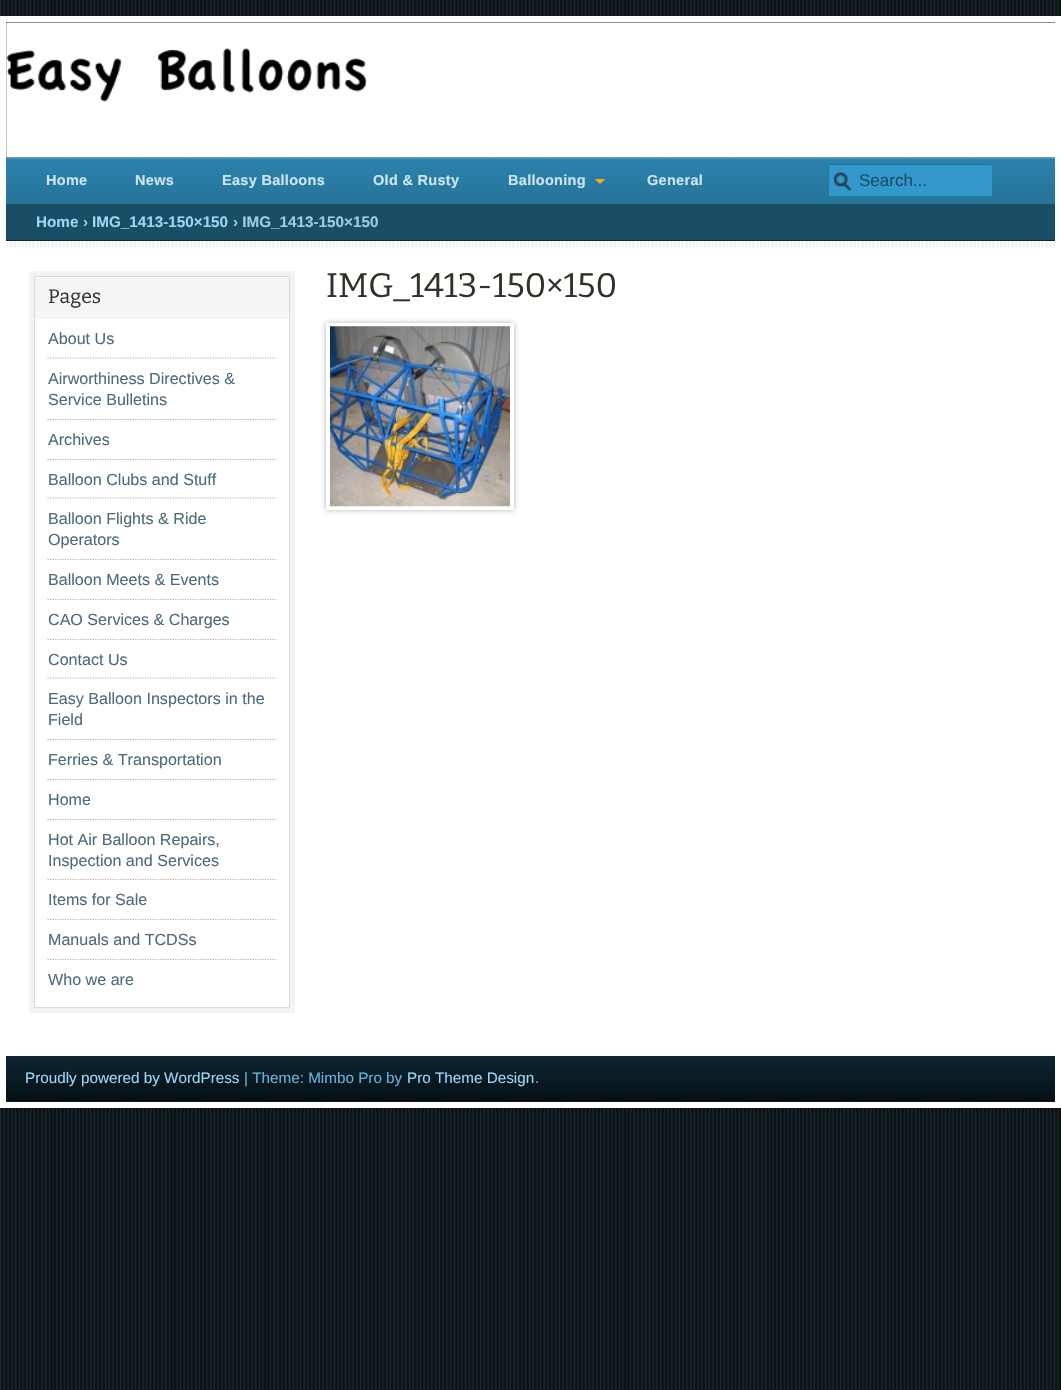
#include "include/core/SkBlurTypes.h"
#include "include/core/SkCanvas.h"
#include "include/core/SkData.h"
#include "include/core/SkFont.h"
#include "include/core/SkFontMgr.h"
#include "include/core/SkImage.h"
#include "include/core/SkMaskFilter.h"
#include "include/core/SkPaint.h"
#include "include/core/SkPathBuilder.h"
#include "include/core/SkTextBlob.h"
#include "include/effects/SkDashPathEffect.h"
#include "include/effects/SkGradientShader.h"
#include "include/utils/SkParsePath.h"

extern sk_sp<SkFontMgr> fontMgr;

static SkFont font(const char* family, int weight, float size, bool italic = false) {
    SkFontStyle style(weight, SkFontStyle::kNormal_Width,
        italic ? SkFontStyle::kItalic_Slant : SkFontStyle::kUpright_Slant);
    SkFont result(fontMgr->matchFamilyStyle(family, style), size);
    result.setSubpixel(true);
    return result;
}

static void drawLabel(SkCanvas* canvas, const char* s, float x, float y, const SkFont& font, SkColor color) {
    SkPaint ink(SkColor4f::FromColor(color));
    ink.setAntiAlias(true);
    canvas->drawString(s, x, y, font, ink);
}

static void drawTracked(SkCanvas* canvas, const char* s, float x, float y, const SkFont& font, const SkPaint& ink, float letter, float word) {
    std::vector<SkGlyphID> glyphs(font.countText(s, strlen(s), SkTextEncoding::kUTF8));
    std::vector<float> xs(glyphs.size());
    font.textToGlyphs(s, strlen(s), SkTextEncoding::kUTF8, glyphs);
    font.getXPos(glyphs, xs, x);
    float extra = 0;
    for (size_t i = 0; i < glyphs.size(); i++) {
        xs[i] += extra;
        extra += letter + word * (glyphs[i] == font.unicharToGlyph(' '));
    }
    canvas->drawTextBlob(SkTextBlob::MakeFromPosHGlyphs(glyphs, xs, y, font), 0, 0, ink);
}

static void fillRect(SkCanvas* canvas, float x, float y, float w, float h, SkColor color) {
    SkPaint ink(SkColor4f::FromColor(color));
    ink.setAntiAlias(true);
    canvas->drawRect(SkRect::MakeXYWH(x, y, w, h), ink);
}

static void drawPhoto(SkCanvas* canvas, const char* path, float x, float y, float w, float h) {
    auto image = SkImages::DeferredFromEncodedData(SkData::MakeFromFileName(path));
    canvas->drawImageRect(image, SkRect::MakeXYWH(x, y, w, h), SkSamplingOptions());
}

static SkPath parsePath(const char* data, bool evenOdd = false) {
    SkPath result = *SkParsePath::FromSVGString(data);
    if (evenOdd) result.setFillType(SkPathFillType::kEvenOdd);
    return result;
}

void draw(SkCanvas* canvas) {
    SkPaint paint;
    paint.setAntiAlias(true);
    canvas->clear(0xFF111111);
    drawPhoto(canvas, "assets/img1.png", 0, 0, 1059, 1390);
    paint.setStroke(true);
    paint.setStrokeWidth(6);
    paint.setColor(0xFFFFFFFF);
    canvas->drawRect(SkRect::MakeXYWH(3, 19, 1055, 1086), paint);
    drawPhoto(canvas, "assets/img2.png", 6, 22, 1049, 136);
    paint.setStroke(false);
    {
        const SkColor colors[] = {0xFF2B82AD, 0xFF267399};
        const float stops[] = {0, 1};
        const SkPoint ends[] = {{531, 159}, {531, 204}};
        paint.setShader(SkGradientShader::MakeLinear(ends, colors, stops, 2, SkTileMode::kClamp));
        paint.setAlpha(255);
    }
    canvas->drawRect(SkRect::MakeXYWH(6, 159, 1049, 45), paint);
    fillRect(canvas, 6, 158, 1049, 1, 0xFF3399CC);
    fillRect(canvas, 6, 204, 1049, 36, 0xFF1A4D66);
    SkFont font1 = font("Liberation Sans", 700, 14.5f);
    paint.setShader(nullptr);
    paint.setColor(0xFFCCE5F2);
    drawTracked(canvas, "Home", 46, 185, font1, paint, 0.3f, 0);
    drawTracked(canvas, "News", 135, 185, font1, paint, 0.3f, 0);
    drawTracked(canvas, "Easy Balloons", 222, 185, font1, paint, 0.3f, 0);
    drawTracked(canvas, "Old & Rusty", 373, 185, font1, paint, 0.3f, 0);
    drawTracked(canvas, "Ballooning", 508, 185, font1, paint, 0.3f, 0);
    paint.setColor(0xFFFFAA11);
    canvas->drawPath(parsePath("M595 179H605L600 184Z"), paint);
    paint.setColor(0xFFCCE5F2);
    drawTracked(canvas, "General", 647, 185, font1, paint, 0.3f, 0);
    paint.setColor(0xFF3399CC);
    canvas->drawPath(parsePath("M830 165H990C991 165 992 166 992 166V194C992 195 991 196 990 196H830C829 196 829 195 829 194V166C829 166 829 165 830 165Z"), paint);
    drawPhoto(canvas, "assets/img3.png", 833, 172, 19, 19);
    fillRect(canvas, 829, 164, 162, 1, 0xFF267399);
    fillRect(canvas, 828, 165, 1, 30, 0xFF267399);
    SkFont font2 = font("Liberation Sans", 400, 17);
    drawLabel(canvas, "Search...", 859, 186, font2, 0xFF1A4D66);
    fillRect(canvas, 6, 240, 1049, 1, 0xFF0D2633);
    SkFont font3 = font("Liberation Sans", 700, 15.25f);
    drawLabel(canvas, "Home", 36, 227, font3, 0xFF9CD6F3);
    drawLabel(canvas, "›", 83, 227, font3, 0xFF9ACDE6);
    drawLabel(canvas, "IMG_1413-150×150", 92, 227, font3, 0xFF9CD6F3);
    drawLabel(canvas, "› IMG_1413-150×150", 233, 227, font3, 0xFF9ACDE6);
    fillRect(canvas, 6, 241, 1049, 815, 0xFFFFFFFF);
    drawPhoto(canvas, "assets/img4.png", 6, 241, 1049, 7);
    fillRect(canvas, 29, 271, 266, 742, 0xFFF3F3F3);
    paint.setColor(0xFFFFFFFF);
    canvas->drawRect(SkRect::MakeXYWH(34.5f, 276.5f, 255, 731), paint);
    paint.setStroke(true);
    paint.setStrokeWidth(1);
    paint.setColor(0xFFDADADA);
    canvas->drawRect(SkRect::MakeXYWH(34.5f, 276.5f, 255, 731), paint);
    fillRect(canvas, 35, 278, 254, 41, 0xFFF5F5F5);
    SkFont font4 = font("Bitter", 100, 19.5f);
    drawLabel(canvas, "Pages", 48, 303, font4, 0xFF333333);
    paint.setStrokeWidth(1.2f);
    paint.setColor(0xFFB0B0B0);
    paint.setPathEffect(SkDashPathEffect::Make({{1.25f, 1.25f}}, 0));
    canvas->drawPath(parsePath("M47.5 358H276"), paint);
    paint.setPathEffect(nullptr);
    SkFont font5 = font("Liberation Sans", 400, 16.1f);
    drawLabel(canvas, "About Us", 48, 344, font5, 0xFF4E6B7A);
    paint.setPathEffect(SkDashPathEffect::Make({{1.25f, 1.25f}}, 0));
    canvas->drawPath(parsePath("M47.5 419.5H276"), paint);
    paint.setPathEffect(nullptr);
    drawLabel(canvas, "Airworthiness Directives &", 48, 384, font5, 0xFF4E6B7A);
    drawLabel(canvas, "Service Bulletins", 48, 405, font5, 0xFF4E6B7A);
    paint.setPathEffect(SkDashPathEffect::Make({{1.25f, 1.25f}}, 0));
    canvas->drawPath(parsePath("M47.5 459.5H276"), paint);
    paint.setPathEffect(nullptr);
    drawLabel(canvas, "Archives", 48, 445, font5, 0xFF4E6B7A);
    paint.setPathEffect(SkDashPathEffect::Make({{1.25f, 1.25f}}, 0));
    canvas->drawPath(parsePath("M47.5 498H276"), paint);
    paint.setPathEffect(nullptr);
    drawLabel(canvas, "Balloon Clubs and Stuff", 48, 485, font5, 0xFF4E6B7A);
    paint.setPathEffect(SkDashPathEffect::Make({{1.25f, 1.25f}}, 0));
    canvas->drawPath(parsePath("M47.5 559.5H276"), paint);
    paint.setPathEffect(nullptr);
    drawLabel(canvas, "Balloon Flights & Ride", 48, 524, font5, 0xFF4E6B7A);
    drawLabel(canvas, "Operators", 48, 545, font5, 0xFF4E6B7A);
    paint.setPathEffect(SkDashPathEffect::Make({{1.25f, 1.25f}}, 0));
    canvas->drawPath(parsePath("M47.5 599.5H276"), paint);
    paint.setPathEffect(nullptr);
    drawLabel(canvas, "Balloon Meets & Events", 48, 585, font5, 0xFF4E6B7A);
    paint.setPathEffect(SkDashPathEffect::Make({{1.25f, 1.25f}}, 0));
    canvas->drawPath(parsePath("M47.5 639.5H276"), paint);
    paint.setPathEffect(nullptr);
    drawLabel(canvas, "CAO Services & Charges", 48, 625, font5, 0xFF4E6B7A);
    paint.setPathEffect(SkDashPathEffect::Make({{1.25f, 1.25f}}, 0));
    canvas->drawPath(parsePath("M47.5 678H276"), paint);
    paint.setPathEffect(nullptr);
    drawLabel(canvas, "Contact Us", 48, 665, font5, 0xFF4E6B7A);
    paint.setPathEffect(SkDashPathEffect::Make({{1.25f, 1.25f}}, 0));
    canvas->drawPath(parsePath("M47.5 739.5H276"), paint);
    paint.setPathEffect(nullptr);
    drawLabel(canvas, "Easy Balloon Inspectors in the", 48, 704, font5, 0xFF4E6B7A);
    drawLabel(canvas, "Field", 48, 725, font5, 0xFF4E6B7A);
    paint.setPathEffect(SkDashPathEffect::Make({{1.25f, 1.25f}}, 0));
    canvas->drawPath(parsePath("M47.5 779.5H276"), paint);
    paint.setPathEffect(nullptr);
    drawLabel(canvas, "Ferries & Transportation", 48, 765, font5, 0xFF4E6B7A);
    paint.setPathEffect(SkDashPathEffect::Make({{1.25f, 1.25f}}, 0));
    canvas->drawPath(parsePath("M47.5 819.5H276"), paint);
    paint.setPathEffect(nullptr);
    drawLabel(canvas, "Home", 48, 805, font5, 0xFF4E6B7A);
    paint.setPathEffect(SkDashPathEffect::Make({{1.25f, 1.25f}}, 0));
    canvas->drawPath(parsePath("M47.5 879.5H276"), paint);
    paint.setPathEffect(nullptr);
    drawLabel(canvas, "Hot Air Balloon Repairs,", 48, 845, font5, 0xFF4E6B7A);
    drawLabel(canvas, "Inspection and Services", 48, 866, font5, 0xFF4E6B7A);
    paint.setPathEffect(SkDashPathEffect::Make({{1.25f, 1.25f}}, 0));
    canvas->drawPath(parsePath("M47.5 919.5H276"), paint);
    paint.setPathEffect(nullptr);
    drawLabel(canvas, "Items for Sale", 48, 905, font5, 0xFF4E6B7A);
    paint.setPathEffect(SkDashPathEffect::Make({{1.25f, 1.25f}}, 0));
    canvas->drawPath(parsePath("M47.5 959.5H276"), paint);
    paint.setPathEffect(nullptr);
    drawLabel(canvas, "Manuals and TCDSs", 48, 945, font5, 0xFF4E6B7A);
    drawLabel(canvas, "Who we are", 48, 985, font5, 0xFF4E6B7A);
    SkFont font6 = font("Bitter", 100, 34);
    drawLabel(canvas, "IMG_1413-150×150", 326, 297, font6, 0xFF313228);
    paint.setStroke(false);
    paint.setColor(0x4D000000);
    paint.setMaskFilter(SkMaskFilter::MakeBlur(kNormal_SkBlurStyle, 2.5f));
    canvas->drawRect(SkRect::MakeXYWH(326, 323, 188, 187), paint);
    paint.setMaskFilter(nullptr);
    fillRect(canvas, 326, 323, 188, 187, 0xFFFFFFFF);
    drawPhoto(canvas, "assets/img5.png", 330, 326, 180, 181);
    {
        const SkColor colors[] = {0xFF0D2633, 0xFF050F14};
        const float stops[] = {0, 1};
        const SkPoint ends[] = {{531, 1056}, {531, 1101}};
        paint.setShader(SkGradientShader::MakeLinear(ends, colors, stops, 2, SkTileMode::kClamp));
        paint.setAlpha(255);
    }
    canvas->drawRect(SkRect::MakeXYWH(6, 1056, 1049, 45), paint);
    SkFont font7 = font("Liberation Sans", 400, 15.25f);
    drawLabel(canvas, "Proudly powered by WordPress", 25, 1083, font7, 0xFF9CD6F3);
    drawLabel(canvas, "| Theme: Mimbo Pro by", 244, 1083, font7, 0xFF66B3D9);
    drawLabel(canvas, "Pro Theme Design", 407, 1083, font7, 0xFF9CD6F3);
    drawLabel(canvas, ".", 535, 1083, font7, 0xFF66B3D9);
}
